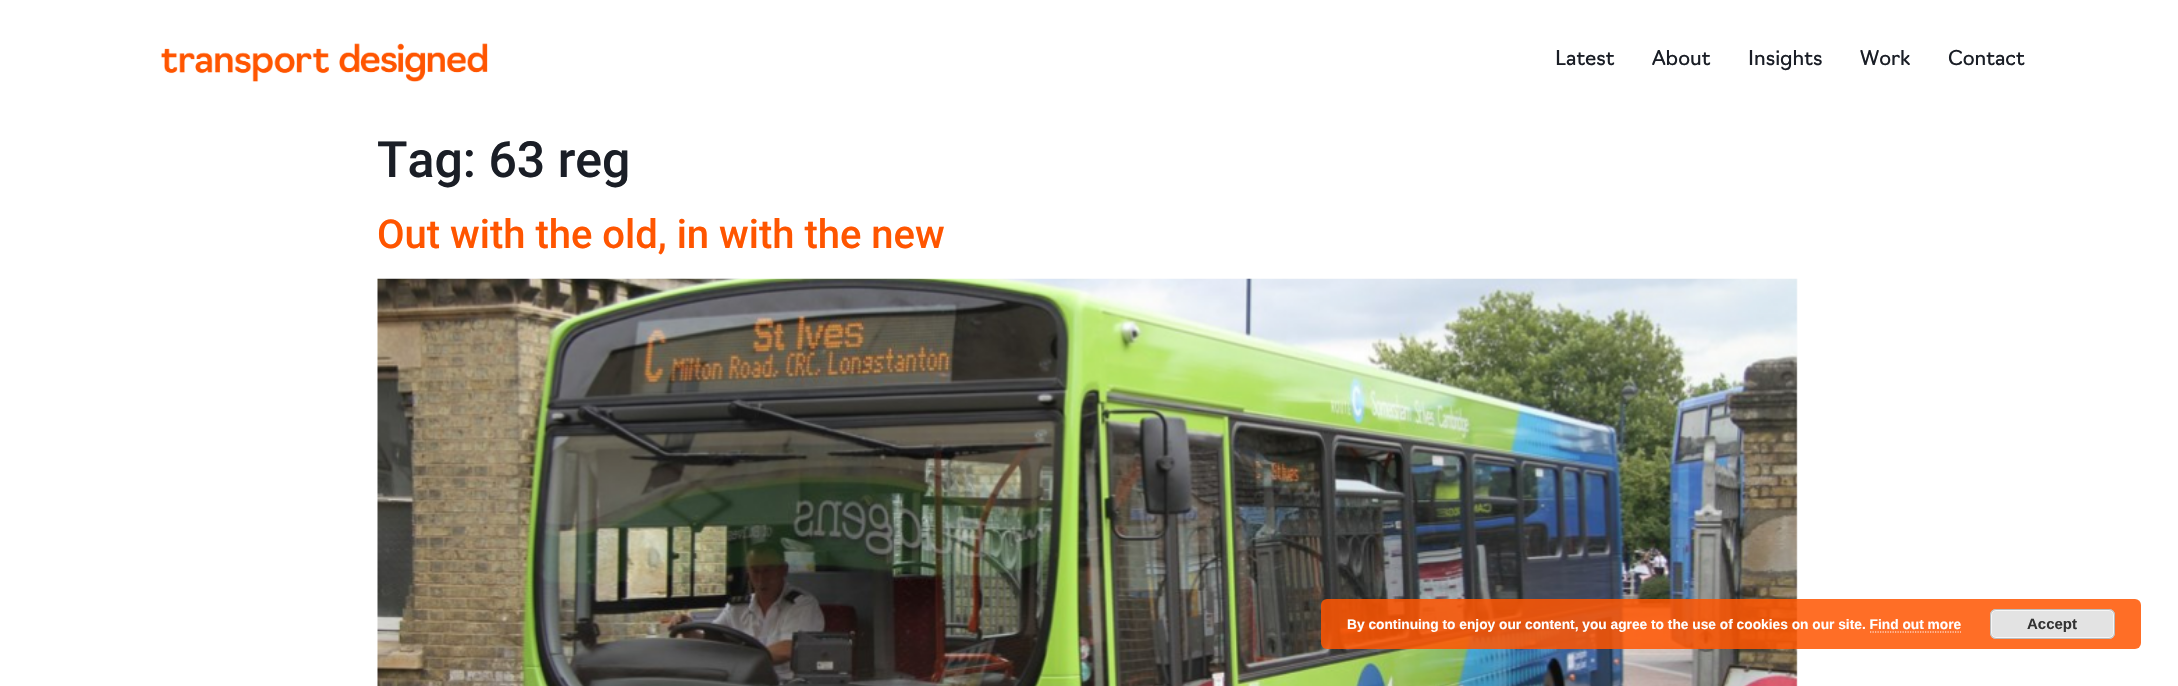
#include "include/core/SkBlurTypes.h"
#include "include/core/SkCanvas.h"
#include "include/core/SkData.h"
#include "include/core/SkFont.h"
#include "include/core/SkFontMgr.h"
#include "include/core/SkImage.h"
#include "include/core/SkMaskFilter.h"
#include "include/core/SkPaint.h"
#include "include/core/SkPathBuilder.h"
#include "include/core/SkTextBlob.h"
#include "include/effects/SkDashPathEffect.h"
#include "include/effects/SkGradientShader.h"
#include "include/utils/SkParsePath.h"

extern sk_sp<SkFontMgr> fontMgr;

static SkFont font(const char* family, int weight, float size, bool italic = false) {
    SkFontStyle style(weight, SkFontStyle::kNormal_Width,
        italic ? SkFontStyle::kItalic_Slant : SkFontStyle::kUpright_Slant);
    SkFont result(fontMgr->matchFamilyStyle(family, style), size);
    result.setSubpixel(true);
    return result;
}

static void drawLabel(SkCanvas* canvas, const char* s, float x, float y, const SkFont& font, SkColor color) {
    SkPaint ink(SkColor4f::FromColor(color));
    ink.setAntiAlias(true);
    canvas->drawString(s, x, y, font, ink);
}

static void fillRRect(SkCanvas* canvas, float x, float y, float w, float h, float radius, SkColor color) {
    SkPaint ink(SkColor4f::FromColor(color));
    ink.setAntiAlias(true);
    canvas->drawRoundRect(SkRect::MakeXYWH(x, y, w, h), radius, radius, ink);
}

static void drawPhoto(SkCanvas* canvas, const char* path, float x, float y, float w, float h) {
    auto image = SkImages::DeferredFromEncodedData(SkData::MakeFromFileName(path));
    canvas->drawImageRect(image, SkRect::MakeXYWH(x, y, w, h), SkSamplingOptions());
}

static SkPath parsePath(const char* data, bool evenOdd = false) {
    SkPath result = *SkParsePath::FromSVGString(data);
    if (evenOdd) result.setFillType(SkPathFillType::kEvenOdd);
    return result;
}

void draw(SkCanvas* canvas) {
    SkPaint paint;
    paint.setAntiAlias(true);
    canvas->clear(0xFFFFFFFF);
    drawPhoto(canvas, "assets/img1.png", 161, 43, 327, 39);
    SkFont font1 = font("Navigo", 400, 20);
    drawLabel(canvas, "Latest", 1555, 65, font1, 0xFF1A1E26);
    drawLabel(canvas, "About", 1652, 65, font1, 0xFF1A1E26);
    drawLabel(canvas, "Insights", 1748, 65, font1, 0xFF1A1E26);
    drawLabel(canvas, "Work", 1860, 65, font1, 0xFF1A1E26);
    drawLabel(canvas, "Contact", 1948, 65, font1, 0xFF1A1E26);
    SkFont font2 = font("Roboto", 500, 50);
    drawLabel(canvas, "Tag: 63 reg", 377, 177, font2, 0xFF1A1E26);
    SkFont font3 = font("Roboto", 500, 40);
    drawLabel(canvas, "Out with the old, in with the new", 377, 248, font3, 0xFFFF5500);
    drawPhoto(canvas, "assets/img2.png", 377, 278, 1421, 408);
    fillRRect(canvas, 1321, 599, 820, 50, 6, 0xD9FF5500);
    SkFont font4 = font("Liberation Sans", 700, 13.75f);
    drawLabel(canvas, "By continuing to enjoy our content, you agree to the use of cookies on our site. Find out more", 1347, 629, font4, 0xFFFFFFFF);
    fillRRect(canvas, 1990, 609, 125, 30, 6, 0xFFE3E3E3);
    paint.setStroke(true);
    paint.setStrokeWidth(1);
    paint.setColor(0xFFF6F6F6);
    canvas->drawRoundRect(SkRect::MakeXYWH(1991.5f, 610.5f, 122, 27), 4.5f, 4.5f, paint);
    paint.setColor(0xFFBBBBBB);
    canvas->drawRoundRect(SkRect::MakeXYWH(1990.5f, 609.5f, 124, 29), 5.5f, 5.5f, paint);
    SkFont font5 = font("Liberation Sans", 700, 15);
    drawLabel(canvas, "Accept", 2027, 629, font5, 0xFF333333);
    paint.setStrokeWidth(1.2f);
    paint.setColor(0xFFFFFFFF);
    paint.setPathEffect(SkDashPathEffect::Make({{1.25f, 1.25f}}, 0));
    canvas->drawPath(parsePath("M1870 632H1961"), paint);
    paint.setPathEffect(nullptr);
}
